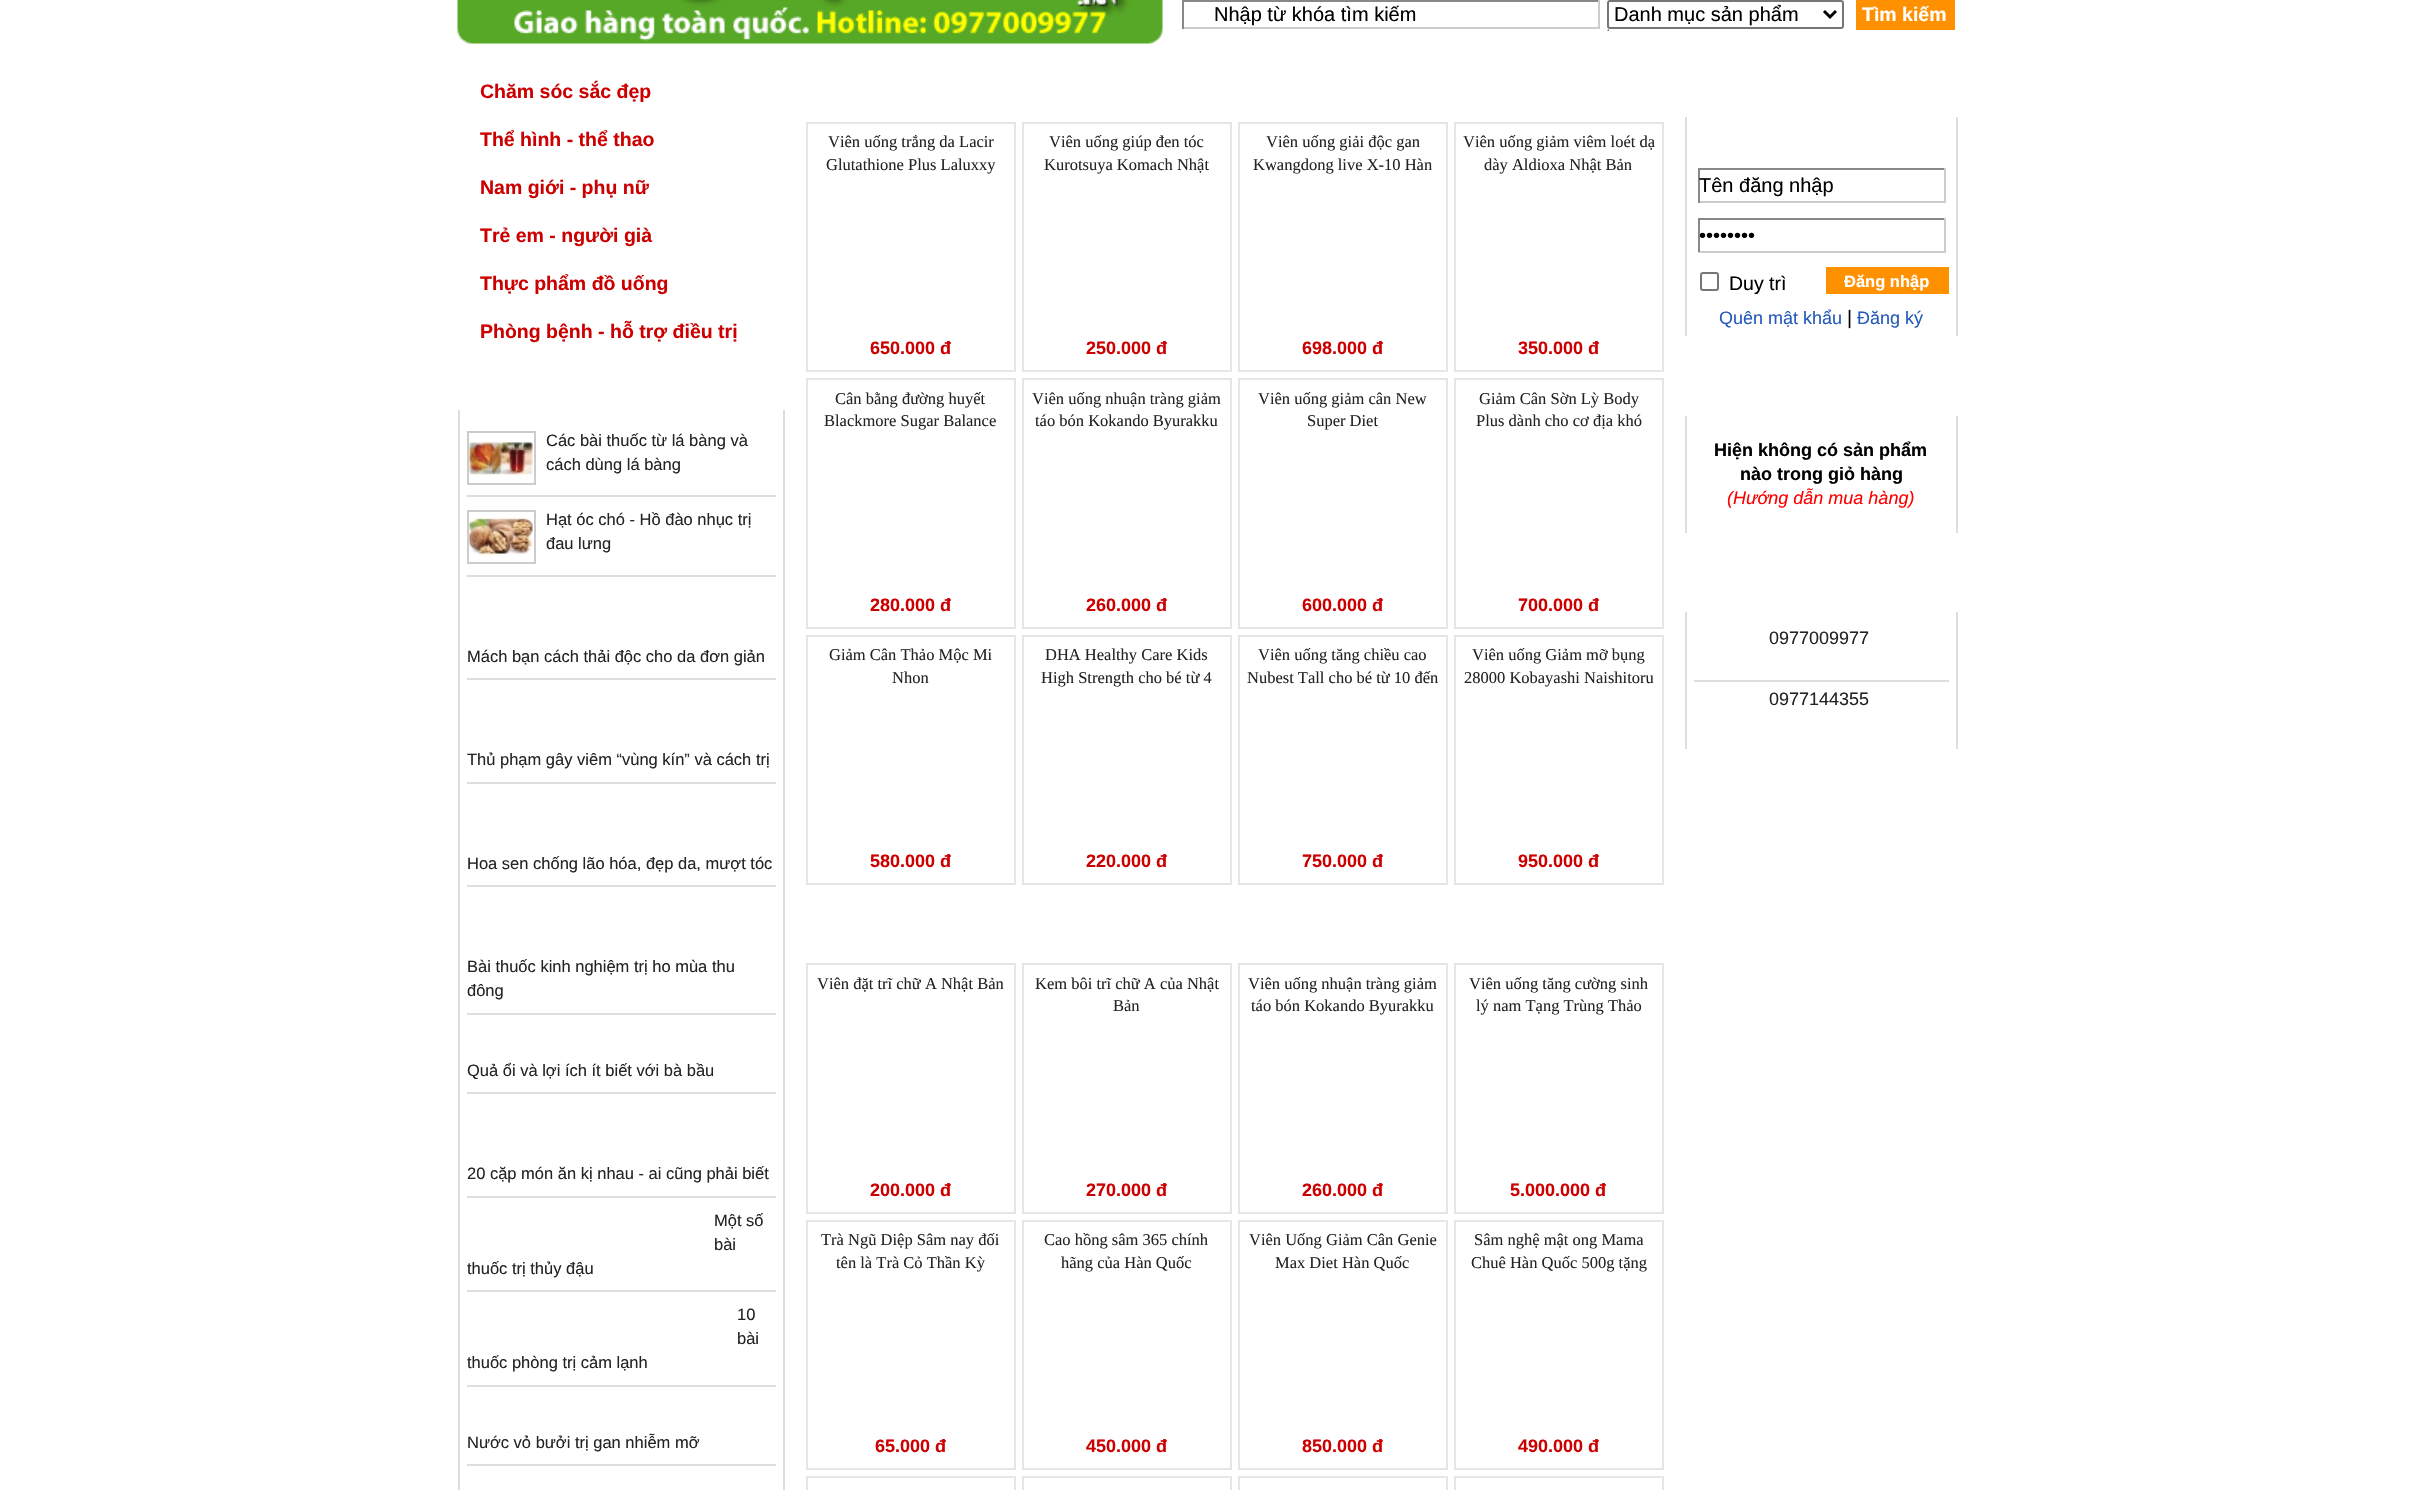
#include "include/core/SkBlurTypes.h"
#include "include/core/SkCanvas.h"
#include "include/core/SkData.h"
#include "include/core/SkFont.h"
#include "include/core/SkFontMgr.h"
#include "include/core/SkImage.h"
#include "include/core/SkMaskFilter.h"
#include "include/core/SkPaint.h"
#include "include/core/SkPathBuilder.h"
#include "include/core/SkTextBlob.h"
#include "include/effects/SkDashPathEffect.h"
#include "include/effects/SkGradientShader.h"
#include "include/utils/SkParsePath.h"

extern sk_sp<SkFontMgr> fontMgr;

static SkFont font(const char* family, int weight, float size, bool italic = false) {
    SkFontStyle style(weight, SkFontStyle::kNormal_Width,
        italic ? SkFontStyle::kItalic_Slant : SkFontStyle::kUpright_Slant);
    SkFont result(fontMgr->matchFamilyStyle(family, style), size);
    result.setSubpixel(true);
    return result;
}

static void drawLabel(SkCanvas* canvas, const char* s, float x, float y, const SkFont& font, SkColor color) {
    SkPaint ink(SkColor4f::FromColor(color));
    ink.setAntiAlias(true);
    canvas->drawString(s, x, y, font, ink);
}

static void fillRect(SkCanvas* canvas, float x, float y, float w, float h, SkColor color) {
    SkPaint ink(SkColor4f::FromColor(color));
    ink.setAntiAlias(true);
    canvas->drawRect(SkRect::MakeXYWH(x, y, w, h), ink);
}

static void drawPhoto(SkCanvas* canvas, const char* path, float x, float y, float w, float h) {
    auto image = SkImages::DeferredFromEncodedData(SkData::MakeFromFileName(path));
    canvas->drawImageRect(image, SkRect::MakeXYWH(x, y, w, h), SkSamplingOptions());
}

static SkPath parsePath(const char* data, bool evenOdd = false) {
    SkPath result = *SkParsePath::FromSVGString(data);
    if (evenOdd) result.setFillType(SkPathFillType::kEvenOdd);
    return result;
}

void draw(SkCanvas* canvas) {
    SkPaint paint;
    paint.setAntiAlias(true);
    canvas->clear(0xFFFFFFFF);
    drawPhoto(canvas, "assets/img1.png", 457, 0, 706, 44);
    fillRect(canvas, 1182, 0, 417, 2, 0xFF888888);
    fillRect(canvas, 1598, 0, 2, 29, 0xFFCCCCCC);
    fillRect(canvas, 1182, 27, 417, 2, 0xFFCCCCCC);
    fillRect(canvas, 1182, 0, 2, 29, 0xFF888888);
    SkFont font1 = font("Liberation Sans", 400, 20);
    drawLabel(canvas, "Nhập từ khóa tìm kiếm", 1214, 21, font1, 0xFF000000);
    paint.setStroke(true);
    paint.setStrokeWidth(2);
    paint.setColor(0xFF767676);
    canvas->drawRoundRect(SkRect::MakeXYWH(1608, 1, 235, 27), 2, 2, paint);
    paint.setStrokeWidth(3);
    paint.setColor(0xFF000000);
    canvas->drawPath(parsePath("M1824 11L1830 17L1836 11"), paint);
    drawLabel(canvas, "Danh mục sản phẩm", 1614, 21, font1, 0xFF000000);
    canvas->save();
    canvas->clipRect(SkRect::MakeXYWH(1607, 29, 2, 2));
    paint.setStrokeWidth(2);
    paint.setColor(0xFF767676);
    canvas->drawRoundRect(SkRect::MakeXYWH(1608, 30, 80, 29), 2, 2, paint);
    canvas->restore();
    fillRect(canvas, 1856, 0, 99, 30, 0xFFFF9000);
    SkFont font2 = font("Liberation Sans", 700, 19.5f);
    drawLabel(canvas, "Tìm kiếm", 1862, 21, font2, 0xFFFFFFFF);
    drawLabel(canvas, "Chăm sóc sắc đẹp", 480, 98, font2, 0xFFCC0000);
    drawLabel(canvas, "Thể hình - thể thao", 480, 146, font2, 0xFFCC0000);
    drawLabel(canvas, "Nam giới - phụ nữ", 480, 194, font2, 0xFFCC0000);
    drawLabel(canvas, "Trẻ em - người già", 480, 242, font2, 0xFFCC0000);
    drawLabel(canvas, "Thực phẩm đồ uống", 480, 290, font2, 0xFFCC0000);
    drawLabel(canvas, "Phòng bệnh - hỗ trợ điều trị", 480, 338, font2, 0xFFCC0000);
    fillRect(canvas, 783, 410, 2, 1080, 0xFFDEDEDE);
    fillRect(canvas, 458, 410, 2, 1080, 0xFFDEDEDE);
    paint.setColor(0xFFCCCCCC);
    canvas->drawRect(SkRect::MakeXYWH(468, 432, 67, 52), paint);
    drawPhoto(canvas, "assets/img2.png", 469, 441, 64, 36);
    SkFont font3 = font("Liberation Sans", 400, 16.5f);
    drawLabel(canvas, "Các bài thuốc từ lá bàng và", 546, 446, font3, 0xFF242424);
    drawLabel(canvas, "cách dùng lá bàng", 546, 470, font3, 0xFF242424);
    fillRect(canvas, 467, 495, 309, 2, 0xFFDEDEDE);
    canvas->drawRect(SkRect::MakeXYWH(468, 511, 67, 52), paint);
    drawPhoto(canvas, "assets/img3.png", 469, 517, 64, 39);
    drawLabel(canvas, "Hạt óc chó - Hồ đào nhục trị", 546, 525, font3, 0xFF242424);
    drawLabel(canvas, "đau lưng", 546, 549, font3, 0xFF242424);
    fillRect(canvas, 467, 575, 309, 2, 0xFFDEDEDE);
    drawLabel(canvas, "Mách bạn cách thải độc cho da đơn giản", 467, 662, font3, 0xFF242424);
    fillRect(canvas, 467, 678, 309, 2, 0xFFDEDEDE);
    drawLabel(canvas, "Thủ phạm gây viêm “vùng kín” và cách trị", 467, 765, font3, 0xFF242424);
    fillRect(canvas, 467, 782, 309, 2, 0xFFDEDEDE);
    drawLabel(canvas, "Hoa sen chống lão hóa, đẹp da, mượt tóc", 467, 869, font3, 0xFF242424);
    fillRect(canvas, 467, 885, 309, 2, 0xFFDEDEDE);
    drawLabel(canvas, "Bài thuốc kinh nghiệm trị ho mùa thu", 467, 972, font3, 0xFF242424);
    drawLabel(canvas, "đông", 467, 996, font3, 0xFF242424);
    fillRect(canvas, 467, 1013, 309, 2, 0xFFDEDEDE);
    drawLabel(canvas, "Quả ổi và lợi ích ít biết với bà bầu", 467, 1076, font3, 0xFF242424);
    fillRect(canvas, 467, 1092, 309, 2, 0xFFDEDEDE);
    drawLabel(canvas, "20 cặp món ăn kị nhau - ai cũng phải biết", 467, 1179, font3, 0xFF242424);
    fillRect(canvas, 467, 1196, 309, 2, 0xFFDEDEDE);
    drawLabel(canvas, "Một số", 714, 1226, font3, 0xFF242424);
    drawLabel(canvas, "bài", 714, 1250, font3, 0xFF242424);
    drawLabel(canvas, "thuốc trị thủy đậu", 467, 1274, font3, 0xFF242424);
    fillRect(canvas, 467, 1290, 309, 2, 0xFFDEDEDE);
    drawLabel(canvas, "10", 737, 1320, font3, 0xFF242424);
    drawLabel(canvas, "bài", 737, 1344, font3, 0xFF242424);
    drawLabel(canvas, "thuốc phòng trị cảm lạnh", 467, 1368, font3, 0xFF242424);
    fillRect(canvas, 467, 1385, 309, 2, 0xFFDEDEDE);
    drawLabel(canvas, "Nước vỏ bưởi trị gan nhiễm mỡ", 467, 1448, font3, 0xFF242424);
    fillRect(canvas, 467, 1464, 309, 2, 0xFFDEDEDE);
    paint.setColor(0xFFE6E6E6);
    canvas->drawRect(SkRect::MakeXYWH(807, 123, 208, 248), paint);
    SkFont font4 = font("Liberation Serif", 400, 16.5f);
    drawLabel(canvas, "Viên uống trắng da Lacir", 828, 147, font4, 0xFF242424);
    drawLabel(canvas, "Glutathione Plus Laluxxy", 826, 170, font4, 0xFF242424);
    SkFont font5 = font("Liberation Sans", 700, 18);
    drawLabel(canvas, "650.000 đ", 870, 354, font5, 0xFFCC0000);
    canvas->drawRect(SkRect::MakeXYWH(1023, 123, 208, 248), paint);
    drawLabel(canvas, "Viên uống giúp đen tóc", 1049, 147, font4, 0xFF242424);
    drawLabel(canvas, "Kurotsuya Komach Nhật", 1044, 170, font4, 0xFF242424);
    drawLabel(canvas, "250.000 đ", 1086, 354, font5, 0xFFCC0000);
    canvas->drawRect(SkRect::MakeXYWH(1239, 123, 208, 248), paint);
    drawLabel(canvas, "Viên uống giải độc gan", 1266, 147, font4, 0xFF242424);
    drawLabel(canvas, "Kwangdong live X-10 Hàn", 1253, 170, font4, 0xFF242424);
    drawLabel(canvas, "698.000 đ", 1302, 354, font5, 0xFFCC0000);
    canvas->drawRect(SkRect::MakeXYWH(1455, 123, 208, 248), paint);
    drawLabel(canvas, "Viên uống giảm viêm loét dạ", 1463, 147, font4, 0xFF242424);
    drawLabel(canvas, "dày Aldioxa Nhật Bản", 1484, 170, font4, 0xFF242424);
    drawLabel(canvas, "350.000 đ", 1518, 354, font5, 0xFFCC0000);
    canvas->drawRect(SkRect::MakeXYWH(807, 379, 208, 249), paint);
    drawLabel(canvas, "Cân bằng đường huyết", 835, 404, font4, 0xFF242424);
    drawLabel(canvas, "Blackmore Sugar Balance", 824, 426, font4, 0xFF242424);
    drawLabel(canvas, "280.000 đ", 870, 611, font5, 0xFFCC0000);
    canvas->drawRect(SkRect::MakeXYWH(1023, 379, 208, 249), paint);
    drawLabel(canvas, "Viên uống nhuận tràng giảm", 1032, 404, font4, 0xFF242424);
    drawLabel(canvas, "táo bón Kokando Byurakku", 1035, 426, font4, 0xFF242424);
    drawLabel(canvas, "260.000 đ", 1086, 611, font5, 0xFFCC0000);
    canvas->drawRect(SkRect::MakeXYWH(1239, 379, 208, 249), paint);
    drawLabel(canvas, "Viên uống giảm cân New", 1258, 404, font4, 0xFF242424);
    drawLabel(canvas, "Super Diet", 1307, 426, font4, 0xFF242424);
    drawLabel(canvas, "600.000 đ", 1302, 611, font5, 0xFFCC0000);
    canvas->drawRect(SkRect::MakeXYWH(1455, 379, 208, 249), paint);
    drawLabel(canvas, "Giảm Cân Sờn Lỳ Body", 1479, 404, font4, 0xFF242424);
    drawLabel(canvas, "Plus dành cho cơ địa khó", 1476, 426, font4, 0xFF242424);
    drawLabel(canvas, "700.000 đ", 1518, 611, font5, 0xFFCC0000);
    canvas->drawRect(SkRect::MakeXYWH(807, 636, 208, 248), paint);
    drawLabel(canvas, "Giảm Cân Thảo Mộc Mi", 829, 660, font4, 0xFF242424);
    drawLabel(canvas, "Nhon", 892, 683, font4, 0xFF242424);
    drawLabel(canvas, "580.000 đ", 870, 867, font5, 0xFFCC0000);
    canvas->drawRect(SkRect::MakeXYWH(1023, 636, 208, 248), paint);
    drawLabel(canvas, "DHA Healthy Care Kids", 1045, 660, font4, 0xFF242424);
    drawLabel(canvas, "High Strength cho bé từ 4", 1041, 683, font4, 0xFF242424);
    drawLabel(canvas, "220.000 đ", 1086, 867, font5, 0xFFCC0000);
    canvas->drawRect(SkRect::MakeXYWH(1239, 636, 208, 248), paint);
    drawLabel(canvas, "Viên uống tăng chiều cao", 1258, 660, font4, 0xFF242424);
    drawLabel(canvas, "Nubest Tall cho bé từ 10 đến", 1247, 683, font4, 0xFF242424);
    drawLabel(canvas, "750.000 đ", 1302, 867, font5, 0xFFCC0000);
    canvas->drawRect(SkRect::MakeXYWH(1455, 636, 208, 248), paint);
    drawLabel(canvas, "Viên uống Giảm mỡ bụng", 1472, 660, font4, 0xFF242424);
    drawLabel(canvas, "28000 Kobayashi Naishitoru", 1464, 683, font4, 0xFF242424);
    drawLabel(canvas, "950.000 đ", 1518, 867, font5, 0xFFCC0000);
    canvas->drawRect(SkRect::MakeXYWH(807, 964, 208, 249), paint);
    drawLabel(canvas, "Viên đặt trĩ chữ A Nhật Bản", 817, 989, font4, 0xFF242424);
    drawLabel(canvas, "200.000 đ", 870, 1196, font5, 0xFFCC0000);
    canvas->drawRect(SkRect::MakeXYWH(1023, 964, 208, 249), paint);
    drawLabel(canvas, "Kem bôi trĩ chữ A của Nhật", 1035, 989, font4, 0xFF242424);
    drawLabel(canvas, "Bản", 1113, 1011, font4, 0xFF242424);
    drawLabel(canvas, "270.000 đ", 1086, 1196, font5, 0xFFCC0000);
    canvas->drawRect(SkRect::MakeXYWH(1239, 964, 208, 249), paint);
    drawLabel(canvas, "Viên uống nhuận tràng giảm", 1248, 989, font4, 0xFF242424);
    drawLabel(canvas, "táo bón Kokando Byurakku", 1251, 1011, font4, 0xFF242424);
    drawLabel(canvas, "260.000 đ", 1302, 1196, font5, 0xFFCC0000);
    canvas->drawRect(SkRect::MakeXYWH(1455, 964, 208, 249), paint);
    drawLabel(canvas, "Viên uống tăng cường sinh", 1469, 989, font4, 0xFF242424);
    drawLabel(canvas, "lý nam Tạng Trùng Thảo", 1476, 1011, font4, 0xFF242424);
    drawLabel(canvas, "5.000.000 đ", 1510, 1196, font5, 0xFFCC0000);
    canvas->drawRect(SkRect::MakeXYWH(807, 1221, 208, 248), paint);
    drawLabel(canvas, "Trà Ngũ Diệp Sâm nay đối", 821, 1245, font4, 0xFF242424);
    drawLabel(canvas, "tên là Trà Cỏ Thần Kỳ", 836, 1268, font4, 0xFF242424);
    drawLabel(canvas, "65.000 đ", 875, 1452, font5, 0xFFCC0000);
    canvas->drawRect(SkRect::MakeXYWH(1023, 1221, 208, 248), paint);
    drawLabel(canvas, "Cao hồng sâm 365 chính", 1044, 1245, font4, 0xFF242424);
    drawLabel(canvas, "hãng của Hàn Quốc", 1061, 1268, font4, 0xFF242424);
    drawLabel(canvas, "450.000 đ", 1086, 1452, font5, 0xFFCC0000);
    canvas->drawRect(SkRect::MakeXYWH(1239, 1221, 208, 248), paint);
    drawLabel(canvas, "Viên Uống Giảm Cân Genie", 1249, 1245, font4, 0xFF242424);
    drawLabel(canvas, "Max Diet Hàn Quốc", 1275, 1268, font4, 0xFF242424);
    drawLabel(canvas, "850.000 đ", 1302, 1452, font5, 0xFFCC0000);
    canvas->drawRect(SkRect::MakeXYWH(1455, 1221, 208, 248), paint);
    drawLabel(canvas, "Sâm nghệ mật ong Mama", 1474, 1245, font4, 0xFF242424);
    drawLabel(canvas, "Chuê Hàn Quốc 500g tặng", 1471, 1268, font4, 0xFF242424);
    drawLabel(canvas, "490.000 đ", 1518, 1452, font5, 0xFFCC0000);
    canvas->drawRect(SkRect::MakeXYWH(807, 1477, 208, 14), paint);
    canvas->drawRect(SkRect::MakeXYWH(1023, 1477, 208, 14), paint);
    canvas->drawRect(SkRect::MakeXYWH(1239, 1477, 208, 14), paint);
    canvas->drawRect(SkRect::MakeXYWH(1455, 1477, 208, 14), paint);
    fillRect(canvas, 1956, 117, 2, 219, 0xFFDEDEDE);
    fillRect(canvas, 1685, 117, 2, 219, 0xFFDEDEDE);
    fillRect(canvas, 1698, 168, 248, 2, 0xFF888888);
    fillRect(canvas, 1944, 168, 2, 35, 0xFFCCCCCC);
    fillRect(canvas, 1698, 201, 248, 2, 0xFFCCCCCC);
    fillRect(canvas, 1698, 168, 2, 35, 0xFF888888);
    drawLabel(canvas, "Tên đăng nhập", 1699, 192, font1, 0xFF000000);
    fillRect(canvas, 1698, 218, 248, 2, 0xFF888888);
    fillRect(canvas, 1944, 218, 2, 34, 0xFFCCCCCC);
    fillRect(canvas, 1698, 251, 248, 2, 0xFFCCCCCC);
    fillRect(canvas, 1698, 218, 2, 34, 0xFF888888);
    canvas->save();
    canvas->clipRect(SkRect::MakeXYWH(1700, 224, 244, 22));
    drawLabel(canvas, "••••••••", 1699, 242, font1, 0xFF000000);
    canvas->restore();
    paint.setColor(0xFF767676);
    canvas->drawRoundRect(SkRect::MakeXYWH(1701, 273, 17, 17), 2, 2, paint);
    SkFont font6 = font("Liberation Sans", 400, 19.5f);
    drawLabel(canvas, "Duy trì", 1729, 290, font6, 0xFF000000);
    fillRect(canvas, 1826, 267, 123, 27, 0xFFFF9000);
    SkFont font7 = font("Liberation Sans", 700, 16.5f);
    drawLabel(canvas, "Đăng nhập", 1844, 287, font7, 0xFFFFFFFF);
    SkFont font8 = font("Liberation Sans", 400, 18);
    drawLabel(canvas, "Quên mật khẩu", 1719, 324, font8, 0xFF255ABB);
    drawLabel(canvas, "|", 1847, 324, font6, 0xFF000000);
    drawLabel(canvas, "Đăng ký", 1857, 324, font8, 0xFF255ABB);
    fillRect(canvas, 1956, 416, 2, 117, 0xFFDEDEDE);
    fillRect(canvas, 1685, 416, 2, 117, 0xFFDEDEDE);
    drawLabel(canvas, "Hiện không có sản phẩm", 1714, 456, font5, 0xFF000000);
    drawLabel(canvas, "nào trong giỏ hàng", 1740, 480, font5, 0xFF000000);
    SkFont font9 = font("Liberation Sans", 400, 18, true);
    drawLabel(canvas, "(Hướng dẫn mua hàng)", 1727, 504, font9, 0xFFFF0000);
    fillRect(canvas, 1956, 612, 2, 137, 0xFFDEDEDE);
    fillRect(canvas, 1685, 612, 2, 137, 0xFFDEDEDE);
    drawLabel(canvas, "0977009977", 1769, 644, font8, 0xFF242424);
    fillRect(canvas, 1694, 680, 255, 2, 0xFFDEDEDE);
    drawLabel(canvas, "0977144355", 1769, 705, font8, 0xFF242424);
}
